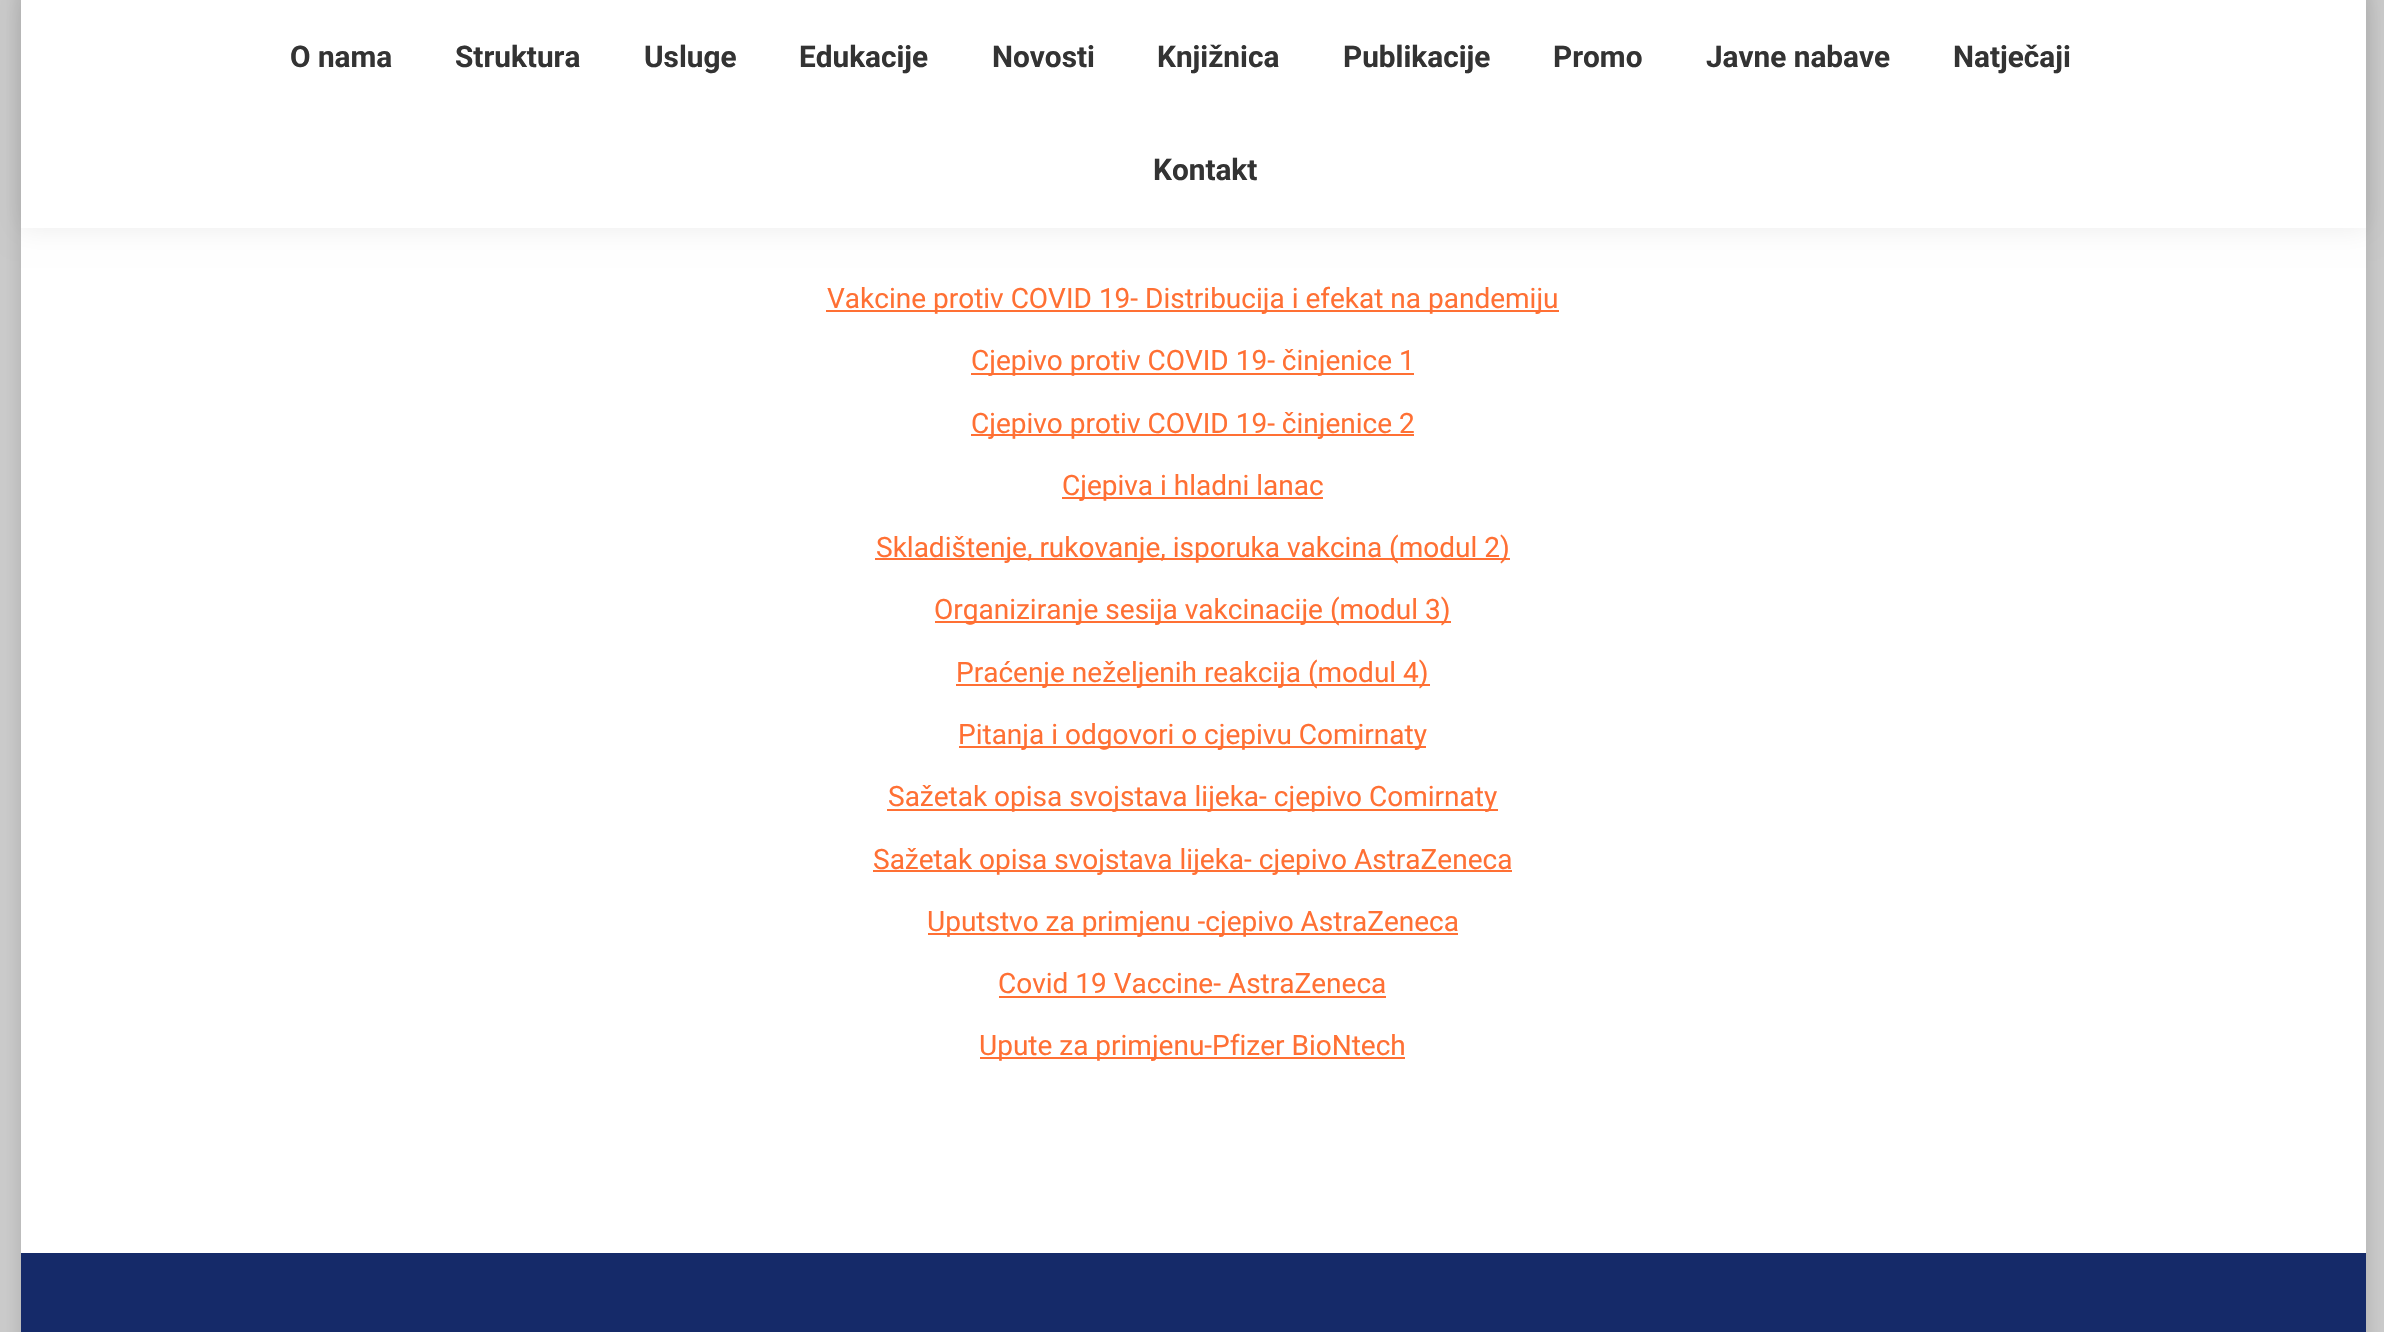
#include "include/core/SkBlurTypes.h"
#include "include/core/SkCanvas.h"
#include "include/core/SkData.h"
#include "include/core/SkFont.h"
#include "include/core/SkFontMgr.h"
#include "include/core/SkImage.h"
#include "include/core/SkMaskFilter.h"
#include "include/core/SkPaint.h"
#include "include/core/SkPathBuilder.h"
#include "include/core/SkTextBlob.h"
#include "include/effects/SkDashPathEffect.h"
#include "include/effects/SkGradientShader.h"
#include "include/utils/SkParsePath.h"

extern sk_sp<SkFontMgr> fontMgr;

static SkFont font(const char* family, int weight, float size, bool italic = false) {
    SkFontStyle style(weight, SkFontStyle::kNormal_Width,
        italic ? SkFontStyle::kItalic_Slant : SkFontStyle::kUpright_Slant);
    SkFont result(fontMgr->matchFamilyStyle(family, style), size);
    result.setSubpixel(true);
    return result;
}

static void drawLabel(SkCanvas* canvas, const char* s, float x, float y, const SkFont& font, SkColor color) {
    SkPaint ink(SkColor4f::FromColor(color));
    ink.setAntiAlias(true);
    canvas->drawString(s, x, y, font, ink);
}

static void fillRect(SkCanvas* canvas, float x, float y, float w, float h, SkColor color) {
    SkPaint ink(SkColor4f::FromColor(color));
    ink.setAntiAlias(true);
    canvas->drawRect(SkRect::MakeXYWH(x, y, w, h), ink);
}

void draw(SkCanvas* canvas) {
    SkPaint paint;
    paint.setAntiAlias(true);
    canvas->clear(0xFFCCCCCC);
    paint.setColor(0x26000000);
    paint.setMaskFilter(SkMaskFilter::MakeBlur(kNormal_SkBlurStyle, 10.5f));
    canvas->drawRect(SkRect::MakeXYWH(21, -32, 2345, 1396), paint);
    paint.setMaskFilter(nullptr);
    fillRect(canvas, 21, 228, 2345, 1025, 0xFFFFFFFF);
    paint.setColor(0x12000000);
    paint.setMaskFilter(SkMaskFilter::MakeBlur(kNormal_SkBlurStyle, 13));
    canvas->drawRect(SkRect::MakeXYWH(19, -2, 2349, 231), paint);
    paint.setMaskFilter(nullptr);
    fillRect(canvas, 21, 0, 2345, 228, 0xFFFFFFFF);
    SkFont font1 = font("Roboto", 700, 29.75f);
    drawLabel(canvas, "O nama", 290, 67, font1, 0xFF333333);
    drawLabel(canvas, "Struktura", 455, 67, font1, 0xFF333333);
    drawLabel(canvas, "Usluge", 644, 67, font1, 0xFF333333);
    drawLabel(canvas, "Edukacije", 799, 67, font1, 0xFF333333);
    drawLabel(canvas, "Novosti", 992, 67, font1, 0xFF333333);
    drawLabel(canvas, "Knjižnica", 1157, 67, font1, 0xFF333333);
    drawLabel(canvas, "Publikacije", 1343, 67, font1, 0xFF333333);
    drawLabel(canvas, "Promo", 1553, 67, font1, 0xFF333333);
    drawLabel(canvas, "Javne nabave", 1706, 67, font1, 0xFF333333);
    drawLabel(canvas, "Natječaji", 1953, 67, font1, 0xFF333333);
    drawLabel(canvas, "Kontakt", 1153, 180, font1, 0xFF333333);
    fillRect(canvas, 826, 310, 733, 2, 0xFFFF7034);
    SkFont font2 = font("Roboto", 400, 28);
    drawLabel(canvas, "Vakcine protiv COVID 19- Distribucija i efekat na pandemiju", 827, 308, font2, 0xFFFF7034);
    fillRect(canvas, 971, 373, 443, 2, 0xFFFF7034);
    drawLabel(canvas, "Cjepivo protiv COVID 19- činjenice 1", 971, 370, font2, 0xFFFF7034);
    fillRect(canvas, 971, 434, 443, 2, 0xFFFF7034);
    drawLabel(canvas, "Cjepivo protiv COVID 19- činjenice 2", 971, 433, font2, 0xFFFF7034);
    fillRect(canvas, 1062, 497, 261, 2, 0xFFFF7034);
    drawLabel(canvas, "Cjepiva i hladni lanac", 1062, 495, font2, 0xFFFF7034);
    fillRect(canvas, 875, 558, 635, 2, 0xFFFF7034);
    drawLabel(canvas, "Skladištenje, rukovanje, isporuka vakcina (modul 2)", 876, 557, font2, 0xFFFF7034);
    fillRect(canvas, 935, 621, 516, 2, 0xFFFF7034);
    drawLabel(canvas, "Organiziranje sesija vakcinacije (modul 3)", 934, 619, font2, 0xFFFF7034);
    fillRect(canvas, 956, 684, 474, 2, 0xFFFF7034);
    drawLabel(canvas, "Praćenje neželjenih reakcija (modul 4)", 956, 682, font2, 0xFFFF7034);
    fillRect(canvas, 959, 746, 467, 2, 0xFFFF7034);
    drawLabel(canvas, "Pitanja i odgovori o cjepivu Comirnaty", 958, 744, font2, 0xFFFF7034);
    fillRect(canvas, 887, 809, 611, 2, 0xFFFF7034);
    drawLabel(canvas, "Sažetak opisa svojstava lijeka- cjepivo Comirnaty", 888, 806, font2, 0xFFFF7034);
    fillRect(canvas, 873, 870, 639, 2, 0xFFFF7034);
    drawLabel(canvas, "Sažetak opisa svojstava lijeka- cjepivo AstraZeneca", 873, 869, font2, 0xFFFF7034);
    fillRect(canvas, 928, 933, 530, 2, 0xFFFF7034);
    drawLabel(canvas, "Uputstvo za primjenu -cjepivo AstraZeneca", 927, 931, font2, 0xFFFF7034);
    drawLabel(canvas, "Covid 19 Vaccine- AstraZeneca", 998, 993, font2, 0xFFFF7034);
    fillRect(canvas, 999, 996, 387, 2, 0xFFFF7034);
    fillRect(canvas, 980, 1057, 425, 2, 0xFFFF7034);
    drawLabel(canvas, "Upute za primjenu-Pfizer BioNtech", 979, 1055, font2, 0xFFFF7034);
    fillRect(canvas, 21, 1253, 2345, 79, 0xFF152A69);
}
